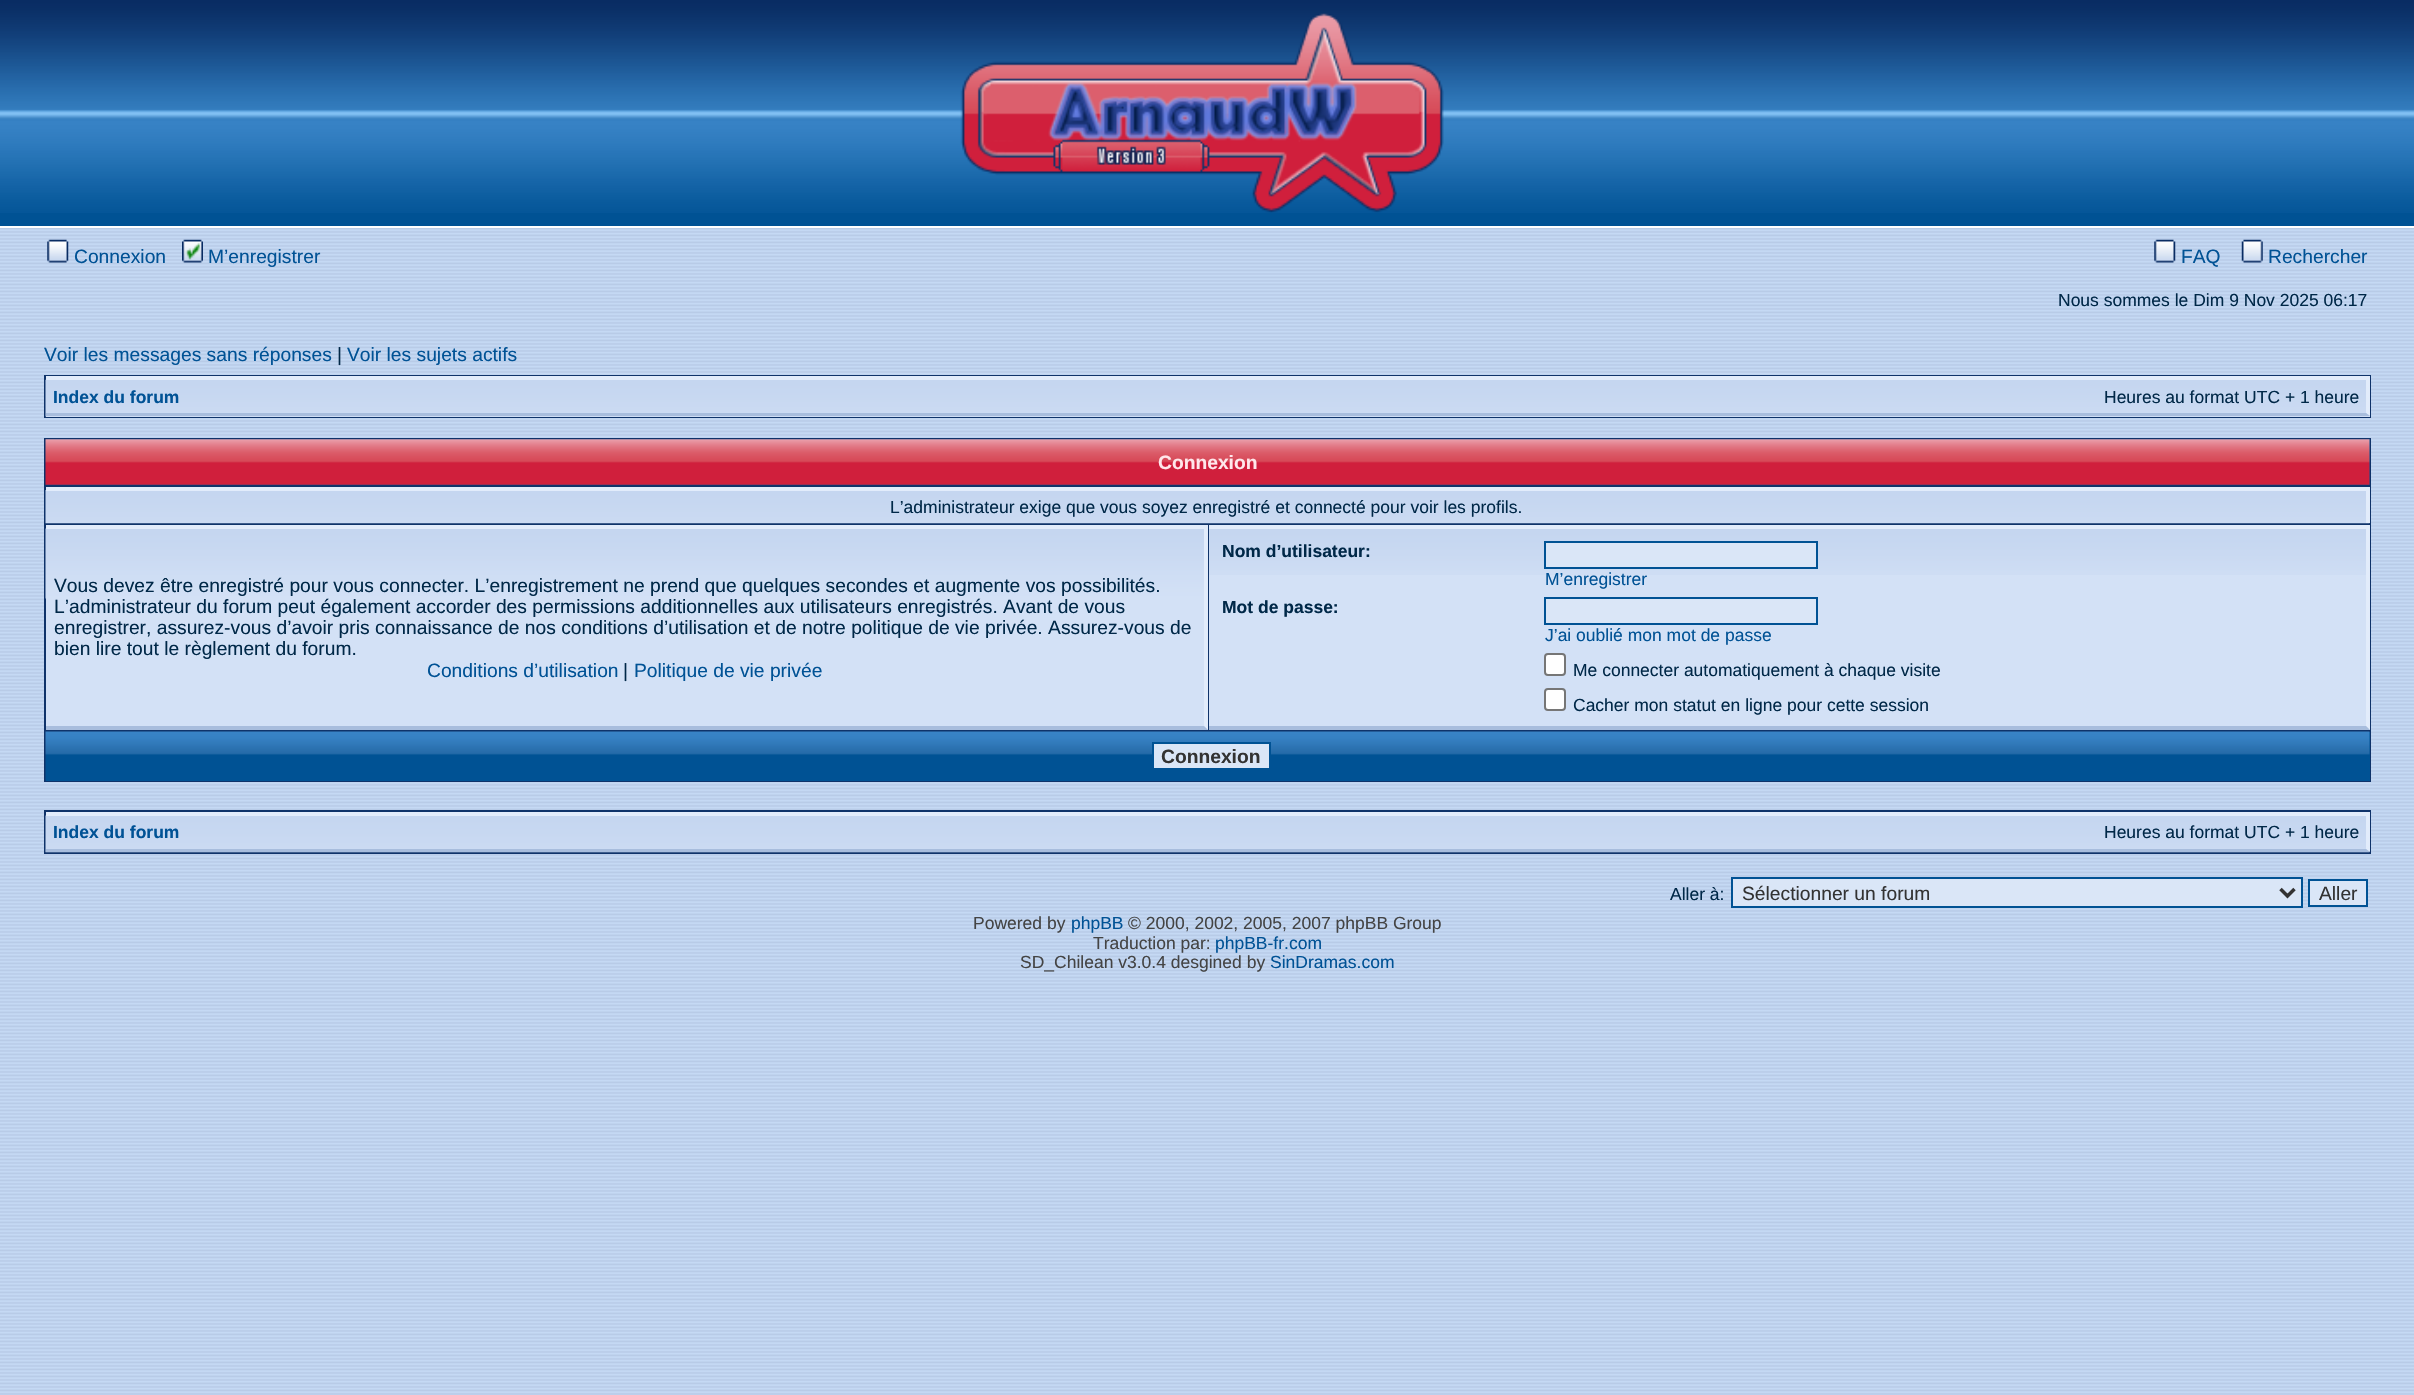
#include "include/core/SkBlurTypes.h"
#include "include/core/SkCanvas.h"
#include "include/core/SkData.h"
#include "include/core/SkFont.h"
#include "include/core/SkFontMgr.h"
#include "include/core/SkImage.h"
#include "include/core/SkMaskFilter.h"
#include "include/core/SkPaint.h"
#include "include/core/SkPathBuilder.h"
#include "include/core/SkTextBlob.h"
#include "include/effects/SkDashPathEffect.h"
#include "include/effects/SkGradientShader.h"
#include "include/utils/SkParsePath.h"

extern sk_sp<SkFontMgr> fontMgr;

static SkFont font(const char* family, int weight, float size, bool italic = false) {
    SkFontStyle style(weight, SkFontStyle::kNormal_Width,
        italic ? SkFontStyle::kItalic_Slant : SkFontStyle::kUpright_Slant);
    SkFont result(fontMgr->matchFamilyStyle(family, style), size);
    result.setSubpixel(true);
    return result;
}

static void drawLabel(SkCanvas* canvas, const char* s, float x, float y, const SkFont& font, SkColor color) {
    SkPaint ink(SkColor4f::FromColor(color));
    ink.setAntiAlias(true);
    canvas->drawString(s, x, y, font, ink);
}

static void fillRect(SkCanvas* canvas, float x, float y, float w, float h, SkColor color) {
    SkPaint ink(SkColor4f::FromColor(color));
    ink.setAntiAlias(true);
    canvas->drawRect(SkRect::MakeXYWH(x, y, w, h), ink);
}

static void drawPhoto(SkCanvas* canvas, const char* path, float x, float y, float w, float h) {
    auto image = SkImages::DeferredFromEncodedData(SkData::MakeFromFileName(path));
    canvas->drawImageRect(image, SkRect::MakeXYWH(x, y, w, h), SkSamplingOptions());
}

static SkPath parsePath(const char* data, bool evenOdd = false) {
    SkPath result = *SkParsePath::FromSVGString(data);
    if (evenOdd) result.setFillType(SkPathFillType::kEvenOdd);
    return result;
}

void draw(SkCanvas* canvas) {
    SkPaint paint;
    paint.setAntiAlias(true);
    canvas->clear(0xFFFFFFFF);
    drawPhoto(canvas, "assets/img1.png", 0, 228, 2414, 1167);
    fillRect(canvas, 0, 213, 2414, 13, 0xFF005294);
    drawPhoto(canvas, "assets/img2.png", 0, 0, 2414, 213);
    drawPhoto(canvas, "assets/img3.png", 960, 13, 484, 200);
    drawPhoto(canvas, "assets/img4.png", 47, 239, 22, 24);
    SkFont font1 = font("Liberation Sans", 400, 19.25f);
    drawLabel(canvas, "Connexion", 74, 263, font1, 0xFF005295);
    drawPhoto(canvas, "assets/img5.png", 182, 239, 21, 24);
    drawLabel(canvas, "M’enregistrer", 208, 263, font1, 0xFF005295);
    drawPhoto(canvas, "assets/img6.png", 2154, 239, 22, 24);
    drawLabel(canvas, "FAQ", 2181, 263, font1, 0xFF005295);
    drawPhoto(canvas, "assets/img7.png", 2241, 239, 22, 24);
    drawLabel(canvas, "Rechercher", 2268, 263, font1, 0xFF005295);
    SkFont font2 = font("Liberation Sans", 400, 17.5f);
    drawLabel(canvas, "Nous sommes le Dim 9 Nov 2025 06:17", 2058, 306, font2, 0xFF002848);
    drawLabel(canvas, "Voir les messages sans réponses", 44, 361, font1, 0xFF005295);
    drawLabel(canvas, "|", 337, 361, font1, 0xFF002848);
    drawLabel(canvas, "Voir les sujets actifs", 347, 361, font1, 0xFF005295);
    fillRect(canvas, 44, 375, 2327, 43, 0xFF0F336A);
    fillRect(canvas, 46, 415, 2324, 2, 0xFFD3E1F6);
    drawPhoto(canvas, "assets/img8.png", 45, 379, 2325, 38);
    fillRect(canvas, 46, 376, 2324, 4, 0xFFE2ECFB);
    paint.setColor(0xFFE2ECFB);
    canvas->drawPath(parsePath("M2370 376V416L2366 413V380Z"), paint);
    paint.setColor(0xFFA8BDDD);
    canvas->drawPath(parsePath("M2370 416H46V413H2366Z"), paint);
    SkFont font3 = font("Liberation Sans", 700, 17.5f);
    drawLabel(canvas, "Index du forum", 53, 403, font3, 0xFF005295);
    drawLabel(canvas, "Heures au format UTC + 1 heure", 2104, 403, font2, 0xFF002848);
    fillRect(canvas, 44, 438, 2327, 344, 0xFF0F336A);
    fillRect(canvas, 46, 439, 2324, 46, 0xFF005294);
    drawPhoto(canvas, "assets/img9.png", 45, 439, 2325, 46);
    SkFont font4 = font("Liberation Sans", 700, 19.25f);
    drawLabel(canvas, "Connexion", 1158, 469, font4, 0xFFFFE7EB);
    drawPhoto(canvas, "assets/img10.png", 45, 490, 2325, 34);
    fillRect(canvas, 46, 487, 2324, 4, 0xFFE2ECFB);
    fillRect(canvas, 2366, 487, 4, 36, 0xFFE2ECFB);
    drawLabel(canvas, "L’administrateur exige que vous soyez enregistré et connecté pour voir les profils.", 890, 513, font2, 0xFF002848);
    fillRect(canvas, 46, 598, 1162, 132, 0xFFD3E1F6);
    drawPhoto(canvas, "assets/img11.png", 45, 528, 1159, 71);
    fillRect(canvas, 46, 525, 1162, 4, 0xFFE2ECFB);
    paint.setColor(0xFFE2ECFB);
    canvas->drawPath(parsePath("M1208 525V730L1204 726V528Z"), paint);
    paint.setColor(0xFFA8BDDD);
    canvas->drawPath(parsePath("M1208 730H46V726H1204Z"), paint);
    drawLabel(canvas, "Vous devez être enregistré pour vous connecter. L’enregistrement ne prend que quelques secondes et augmente vos possibilités.", 54, 592, font1, 0xFF002848);
    drawLabel(canvas, "L’administrateur du forum peut également accorder des permissions additionnelles aux utilisateurs enregistrés. Avant de vous", 54, 613, font1, 0xFF002848);
    drawLabel(canvas, "enregistrer, assurez-vous d’avoir pris connaissance de nos conditions d’utilisation et de notre politique de vie privée. Assurez-vous de", 54, 634, font1, 0xFF002848);
    drawLabel(canvas, "bien lire tout le règlement du forum.", 54, 655, font1, 0xFF002848);
    drawLabel(canvas, "Conditions d’utilisation", 427, 677, font1, 0xFF005295);
    drawLabel(canvas, "|", 623, 677, font1, 0xFF002848);
    drawLabel(canvas, "Politique de vie privée", 634, 677, font1, 0xFF005295);
    fillRect(canvas, 1209, 529, 1161, 201, 0xFFD3E1F6);
    drawPhoto(canvas, "assets/img12.png", 1209, 529, 1157, 46);
    fillRect(canvas, 1209, 525, 1161, 4, 0xFFE2ECFB);
    paint.setColor(0xFFE2ECFB);
    canvas->drawPath(parsePath("M2370 525V730L2366 726V528Z"), paint);
    paint.setColor(0xFFA8BDDD);
    canvas->drawPath(parsePath("M2370 730H1209V726H2366Z"), paint);
    drawLabel(canvas, "Nom d’utilisateur:", 1222, 557, font3, 0xFF002848);
    paint.setColor(0xFFDAE6F7);
    canvas->drawRect(SkRect::MakeXYWH(1545, 542, 272, 26), paint);
    paint.setStroke(true);
    paint.setStrokeWidth(2);
    paint.setColor(0xFF005294);
    canvas->drawRect(SkRect::MakeXYWH(1545, 542, 272, 26), paint);
    drawLabel(canvas, "M’enregistrer", 1545, 585, font2, 0xFF005295);
    drawLabel(canvas, "Mot de passe:", 1222, 613, font3, 0xFF002848);
    paint.setStroke(false);
    paint.setColor(0xFFDAE6F7);
    canvas->drawRect(SkRect::MakeXYWH(1545, 598, 272, 26), paint);
    paint.setStroke(true);
    paint.setColor(0xFF005294);
    canvas->drawRect(SkRect::MakeXYWH(1545, 598, 272, 26), paint);
    drawLabel(canvas, "J’ai oublié mon mot de passe", 1545, 641, font2, 0xFF005295);
    paint.setStroke(false);
    paint.setColor(0xFFFFFFFF);
    canvas->drawRoundRect(SkRect::MakeXYWH(1545, 654, 20, 21), 3, 3, paint);
    paint.setStroke(true);
    paint.setColor(0xFF767676);
    canvas->drawRoundRect(SkRect::MakeXYWH(1545, 654, 20, 21), 3, 3, paint);
    drawLabel(canvas, "Me connecter automatiquement à chaque visite", 1573, 676, font2, 0xFF002848);
    paint.setStroke(false);
    paint.setColor(0xFFFFFFFF);
    canvas->drawRoundRect(SkRect::MakeXYWH(1545, 689, 20, 21), 3, 3, paint);
    paint.setStroke(true);
    paint.setColor(0xFF767676);
    canvas->drawRoundRect(SkRect::MakeXYWH(1545, 689, 20, 21), 3, 3, paint);
    drawLabel(canvas, "Cacher mon statut en ligne pour cette session", 1573, 711, font2, 0xFF002848);
    fillRect(canvas, 46, 732, 2324, 49, 0xFF005294);
    drawPhoto(canvas, "assets/img13.png", 45, 731, 2325, 50);
    paint.setStroke(false);
    paint.setColor(0xFFDAE6F7);
    canvas->drawRect(SkRect::MakeXYWH(1153, 743, 117, 26), paint);
    paint.setStroke(true);
    paint.setColor(0xFF005294);
    canvas->drawRect(SkRect::MakeXYWH(1153, 743, 117, 26), paint);
    drawLabel(canvas, "Connexion", 1161, 763, font4, 0xFF333333);
    fillRect(canvas, 44, 810, 2327, 44, 0xFF0F336A);
    drawPhoto(canvas, "assets/img14.png", 45, 815, 2325, 38);
    fillRect(canvas, 46, 812, 2324, 4, 0xFFE2ECFB);
    paint.setStroke(false);
    paint.setColor(0xFFE2ECFB);
    canvas->drawPath(parsePath("M2370 812V852L2366 849V816Z"), paint);
    paint.setColor(0xFFA8BDDD);
    canvas->drawPath(parsePath("M2370 852H46V849H2366Z"), paint);
    drawLabel(canvas, "Index du forum", 53, 838, font3, 0xFF005295);
    drawLabel(canvas, "Heures au format UTC + 1 heure", 2104, 838, font2, 0xFF002848);
    drawLabel(canvas, "Aller à:", 1670, 900, font2, 0xFF002848);
    paint.setColor(0xFFDAE6F7);
    canvas->drawRect(SkRect::MakeXYWH(1732, 878, 570, 29), paint);
    paint.setStroke(true);
    paint.setColor(0xFF005294);
    canvas->drawRect(SkRect::MakeXYWH(1732, 878, 570, 29), paint);
    paint.setStrokeWidth(3.5f);
    paint.setColor(0xFF333333);
    canvas->drawPath(parsePath("M2280.5 889L2287.5 896L2294.5 889"), paint);
    drawLabel(canvas, "Sélectionner un forum", 1742, 900, font1, 0xFF333333);
    paint.setStroke(false);
    paint.setColor(0xFFDAE6F7);
    canvas->drawRect(SkRect::MakeXYWH(2309, 880, 58, 26), paint);
    paint.setStroke(true);
    paint.setStrokeWidth(2);
    paint.setColor(0xFF005294);
    canvas->drawRect(SkRect::MakeXYWH(2309, 880, 58, 26), paint);
    drawLabel(canvas, "Aller", 2319, 900, font1, 0xFF333333);
    drawLabel(canvas, "Powered by", 973, 929, font2, 0xFF444444);
    drawLabel(canvas, "phpBB", 1071, 929, font2, 0xFF005295);
    drawLabel(canvas, "© 2000, 2002, 2005, 2007 phpBB Group", 1128, 929, font2, 0xFF444444);
    drawLabel(canvas, "Traduction par:", 1093, 949, font2, 0xFF444444);
    drawLabel(canvas, "phpBB-fr.com", 1215, 949, font2, 0xFF005295);
    drawLabel(canvas, "SD_Chilean v3.0.4 desgined by", 1020, 968, font2, 0xFF444444);
    drawLabel(canvas, "SinDramas.com", 1270, 968, font2, 0xFF005295);
}
